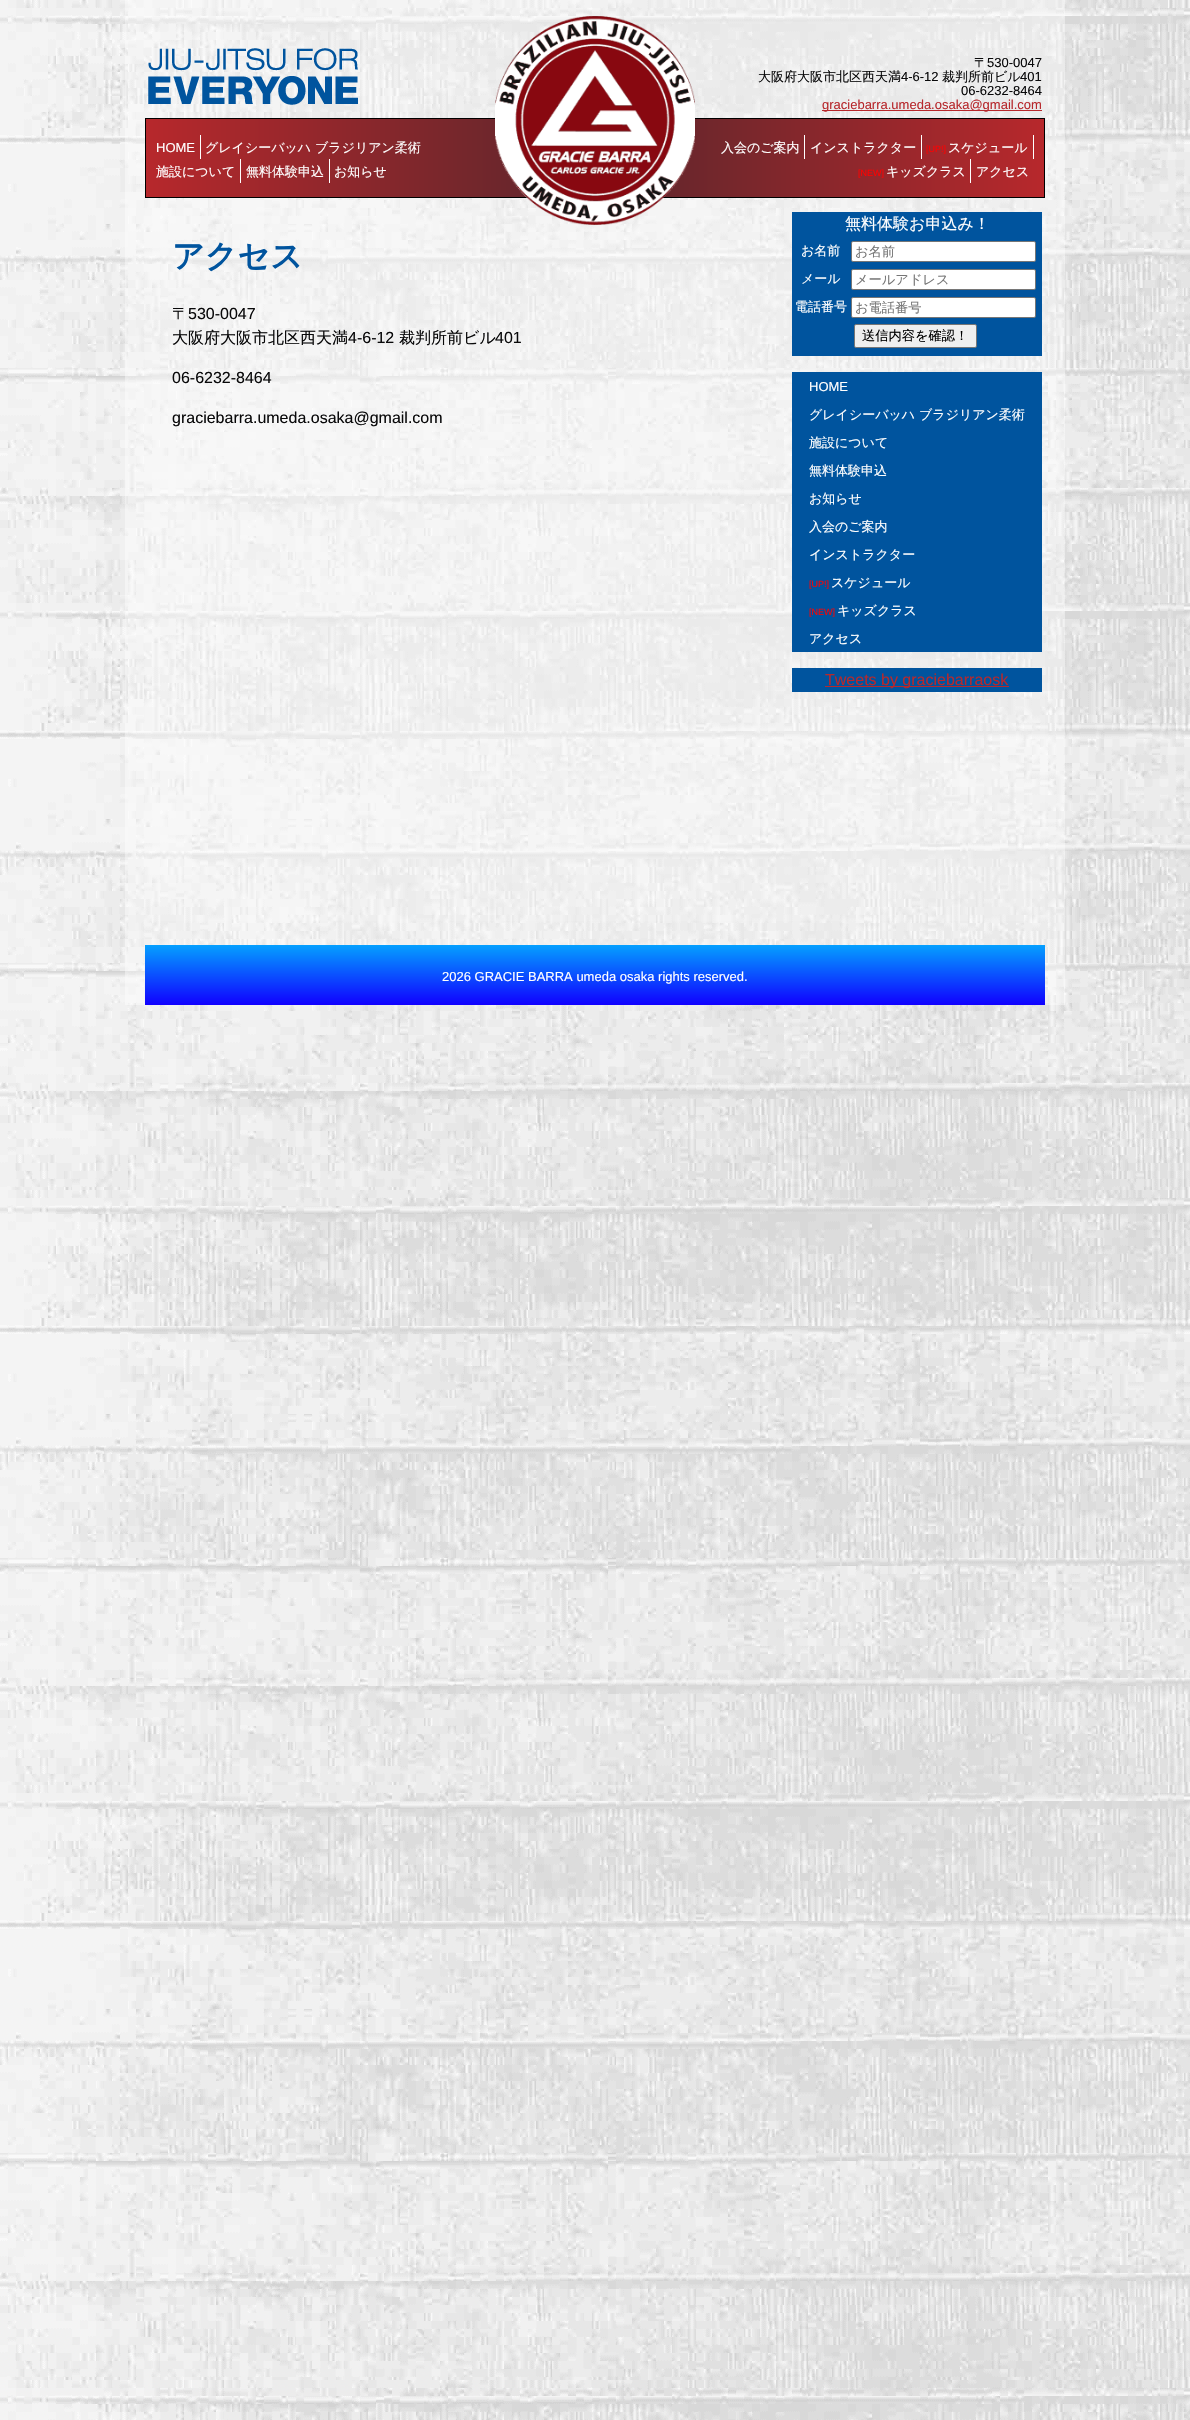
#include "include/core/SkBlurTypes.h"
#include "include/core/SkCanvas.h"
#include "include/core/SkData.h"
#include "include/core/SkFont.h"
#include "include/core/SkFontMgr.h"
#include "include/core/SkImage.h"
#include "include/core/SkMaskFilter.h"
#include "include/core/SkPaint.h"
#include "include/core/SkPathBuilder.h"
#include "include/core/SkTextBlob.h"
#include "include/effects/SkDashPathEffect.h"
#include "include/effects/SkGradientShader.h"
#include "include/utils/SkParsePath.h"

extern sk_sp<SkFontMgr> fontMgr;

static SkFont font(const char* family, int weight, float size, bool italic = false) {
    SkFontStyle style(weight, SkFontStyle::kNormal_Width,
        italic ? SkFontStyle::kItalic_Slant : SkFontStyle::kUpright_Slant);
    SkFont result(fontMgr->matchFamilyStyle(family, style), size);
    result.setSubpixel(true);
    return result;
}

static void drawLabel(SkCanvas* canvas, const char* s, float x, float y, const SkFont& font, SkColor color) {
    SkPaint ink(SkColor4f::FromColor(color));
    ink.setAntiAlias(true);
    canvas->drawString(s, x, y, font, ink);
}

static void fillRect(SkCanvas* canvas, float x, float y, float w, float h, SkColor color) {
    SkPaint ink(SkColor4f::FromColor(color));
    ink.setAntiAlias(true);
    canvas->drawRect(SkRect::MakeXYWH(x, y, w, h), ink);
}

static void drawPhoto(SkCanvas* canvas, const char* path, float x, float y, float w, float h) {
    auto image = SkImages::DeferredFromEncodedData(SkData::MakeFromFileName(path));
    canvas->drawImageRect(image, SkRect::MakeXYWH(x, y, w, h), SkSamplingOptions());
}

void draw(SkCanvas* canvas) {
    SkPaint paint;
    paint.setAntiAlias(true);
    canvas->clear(0xFFFFFFFF);
    drawPhoto(canvas, "assets/img1.png", 0, 0, 1190, 2420);
    fillRect(canvas, 125, 0, 940, 1005, 0x66FFFFFF);
    {
        const SkColor colors[] = {0xFFB7282C, 0xFF5A262C, 0xFFB7282C};
        const float stops[] = {0, 0.5f, 1};
        const SkPoint ends[] = {{146, 158}, {1044, 158}};
        paint.setShader(SkGradientShader::MakeLinear(ends, colors, stops, 3, SkTileMode::kClamp));
        paint.setAlpha(255);
    }
    canvas->drawRect(SkRect::MakeXYWH(146, 119, 898, 78), paint);
    paint.setStroke(true);
    paint.setStrokeWidth(1);
    paint.setShader(nullptr);
    paint.setColor(0xFF000000);
    canvas->drawRect(SkRect::MakeXYWH(145.5f, 118.5f, 899, 79), paint);
    fillRect(canvas, 145, 210, 900, 711, 0x1AFFFFFF);
    drawPhoto(canvas, "assets/img2.png", 495, 16, 200, 209);
    drawPhoto(canvas, "assets/img3.png", 148, 48, 210, 57);
    SkFont font1 = font("WenQuanYi Zen Hei", 500, 13);
    drawLabel(canvas, "〒", 974, 67, font1, 0xFF09090A);
    SkFont font2 = font("Liberation Sans", 400, 13);
    drawLabel(canvas, "530-0047", 987, 67, font2, 0xFF09090A);
    drawLabel(canvas, "大阪府大阪市北区西天満", 758, 81, font1, 0xFF09090A);
    drawLabel(canvas, "4-6-12", 901, 81, font2, 0xFF09090A);
    drawLabel(canvas, "裁判所前ビル", 942, 81, font1, 0xFF09090A);
    drawLabel(canvas, "401", 1020, 81, font2, 0xFF09090A);
    drawLabel(canvas, "06-6232-8464", 961, 95, font2, 0xFF09090A);
    fillRect(canvas, 822, 110, 220, 1, 0xFFB7282C);
    drawLabel(canvas, "graciebarra.umeda.osaka@gmail.com", 822, 109, font2, 0xFFB7282C);
    fillRect(canvas, 200, 135, 1, 24, 0xFFFFFFFF);
    drawLabel(canvas, "HOME", 156, 152, font2, 0xFFFFFFFF);
    drawLabel(canvas, "グレイシーバッハ ブラジリアン柔術", 205, 152, font1, 0xFFFFFFFF);
    fillRect(canvas, 240, 159, 1, 24, 0xFFFFFFFF);
    drawLabel(canvas, "施設について", 156, 176, font1, 0xFFFFFFFF);
    fillRect(canvas, 329, 159, 1, 24, 0xFFFFFFFF);
    drawLabel(canvas, "無料体験申込", 246, 176, font1, 0xFFFFFFFF);
    drawLabel(canvas, "お知らせ", 334, 176, font1, 0xFFFFFFFF);
    fillRect(canvas, 804, 135, 1, 24, 0xFFFFFFFF);
    drawLabel(canvas, "入会のご案内", 721, 152, font1, 0xFFFFFFFF);
    fillRect(canvas, 921, 135, 1, 24, 0xFFFFFFFF);
    drawLabel(canvas, "インストラクター", 810, 152, font1, 0xFFFFFFFF);
    fillRect(canvas, 1033, 135, 1, 24, 0xFFFFFFFF);
    SkFont font3 = font("Liberation Sans", 400, 9);
    drawLabel(canvas, "[UP!]", 926, 152, font3, 0xFFFF0000);
    drawLabel(canvas, "スケジュール", 948, 152, font1, 0xFFFFFFFF);
    fillRect(canvas, 970, 159, 1, 24, 0xFFFFFFFF);
    drawLabel(canvas, "[NEW]", 858, 176, font3, 0xFFFF0000);
    drawLabel(canvas, "キッズクラス", 886, 176, font1, 0xFFFFFFFF);
    drawLabel(canvas, "アクセス", 976, 176, font1, 0xFFFFFFFF);
    SkFont font4 = font("WenQuanYi Zen Hei", 700, 32);
    drawLabel(canvas, "アクセス", 172, 267, font4, 0xFF00549E);
    SkFont font5 = font("WenQuanYi Zen Hei", 500, 16);
    drawLabel(canvas, "〒", 172, 319, font5, 0xFF09090A);
    SkFont font6 = font("Liberation Sans", 400, 16);
    drawLabel(canvas, "530-0047", 188, 319, font6, 0xFF09090A);
    drawLabel(canvas, "大阪府大阪市北区西天満", 172, 343, font5, 0xFF09090A);
    drawLabel(canvas, "4-6-12", 348, 343, font6, 0xFF09090A);
    drawLabel(canvas, "裁判所前ビル", 399, 343, font5, 0xFF09090A);
    drawLabel(canvas, "401", 495, 343, font6, 0xFF09090A);
    drawLabel(canvas, "06-6232-8464", 172, 383, font6, 0xFF09090A);
    drawLabel(canvas, "graciebarra.umeda.osaka@gmail.com", 172, 423, font6, 0xFF09090A);
    fillRect(canvas, 792, 212, 250, 144, 0xFF00549E);
    drawLabel(canvas, "無料体験お申込み！", 845, 229, font5, 0xFFFFFFFF);
    drawLabel(canvas, "お名前", 801, 255, font1, 0xFFFFFFFF);
    paint.setStroke(false);
    paint.setColor(0xFFFFFFFF);
    canvas->drawRoundRect(SkRect::MakeXYWH(851.5f, 241.5f, 184, 20), 1.5f, 1.5f, paint);
    paint.setStroke(true);
    paint.setColor(0xFF767676);
    canvas->drawRoundRect(SkRect::MakeXYWH(851.5f, 241.5f, 184, 20), 1.5f, 1.5f, paint);
    SkFont font7 = font("WenQuanYi Zen Hei", 500, 13.25f);
    drawLabel(canvas, "お名前", 855, 256, font7, 0xFF757575);
    drawLabel(canvas, "メール", 801, 283, font1, 0xFFFFFFFF);
    paint.setStroke(false);
    paint.setColor(0xFFFFFFFF);
    canvas->drawRoundRect(SkRect::MakeXYWH(851.5f, 269.5f, 184, 20), 1.5f, 1.5f, paint);
    paint.setStroke(true);
    paint.setColor(0xFF767676);
    canvas->drawRoundRect(SkRect::MakeXYWH(851.5f, 269.5f, 184, 20), 1.5f, 1.5f, paint);
    drawLabel(canvas, "メールアドレス", 855, 284, font7, 0xFF757575);
    drawLabel(canvas, "電話番号", 795, 311, font1, 0xFFFFFFFF);
    paint.setStroke(false);
    paint.setColor(0xFFFFFFFF);
    canvas->drawRoundRect(SkRect::MakeXYWH(851.5f, 297.5f, 184, 20), 1.5f, 1.5f, paint);
    paint.setStroke(true);
    paint.setColor(0xFF767676);
    canvas->drawRoundRect(SkRect::MakeXYWH(851.5f, 297.5f, 184, 20), 1.5f, 1.5f, paint);
    drawLabel(canvas, "お電話番号", 855, 312, font7, 0xFF757575);
    paint.setStroke(false);
    paint.setColor(0xFFEFEFEF);
    canvas->drawRoundRect(SkRect::MakeXYWH(854.5f, 324.5f, 122, 23), 1.5f, 1.5f, paint);
    paint.setStroke(true);
    paint.setColor(0xFF767676);
    canvas->drawRoundRect(SkRect::MakeXYWH(854.5f, 324.5f, 122, 23), 1.5f, 1.5f, paint);
    drawLabel(canvas, "送信内容を確認！", 862, 340, font7, 0xFF000000);
    fillRect(canvas, 792, 372, 250, 280, 0xFF00549E);
    drawLabel(canvas, "HOME", 809, 391, font2, 0xFFFFFFFF);
    drawLabel(canvas, "グレイシーバッハ ブラジリアン柔術", 809, 419, font1, 0xFFFFFFFF);
    drawLabel(canvas, "施設について", 809, 447, font1, 0xFFFFFFFF);
    drawLabel(canvas, "無料体験申込", 809, 475, font1, 0xFFFFFFFF);
    drawLabel(canvas, "お知らせ", 809, 503, font1, 0xFFFFFFFF);
    drawLabel(canvas, "入会のご案内", 809, 531, font1, 0xFFFFFFFF);
    drawLabel(canvas, "インストラクター", 809, 559, font1, 0xFFFFFFFF);
    drawLabel(canvas, "[UP!]", 809, 587, font3, 0xFFFF0000);
    drawLabel(canvas, "スケジュール", 831, 587, font1, 0xFFFFFFFF);
    drawLabel(canvas, "[NEW]", 809, 615, font3, 0xFFFF0000);
    drawLabel(canvas, "キッズクラス", 837, 615, font1, 0xFFFFFFFF);
    drawLabel(canvas, "アクセス", 809, 643, font1, 0xFFFFFFFF);
    fillRect(canvas, 792, 668, 250, 24, 0xFF00549E);
    fillRect(canvas, 825, 686, 184, 1, 0xFFB7282C);
    drawLabel(canvas, "Tweets by graciebarraosk", 825, 685, font6, 0xFFB7282C);
    paint.setStroke(false);
    {
        const SkColor colors[] = {0xFF05A0FF, 0xFF1000FF};
        const float stops[] = {0, 1};
        const SkPoint ends[] = {{595, 945}, {595, 1005}};
        paint.setShader(SkGradientShader::MakeLinear(ends, colors, stops, 2, SkTileMode::kClamp));
        paint.setAlpha(255);
    }
    canvas->drawRect(SkRect::MakeXYWH(145, 945, 900, 60), paint);
    drawLabel(canvas, "2026 GRACIE BARRA umeda osaka rights reserved.", 442, 981, font2, 0xFFFFFFFF);
}
